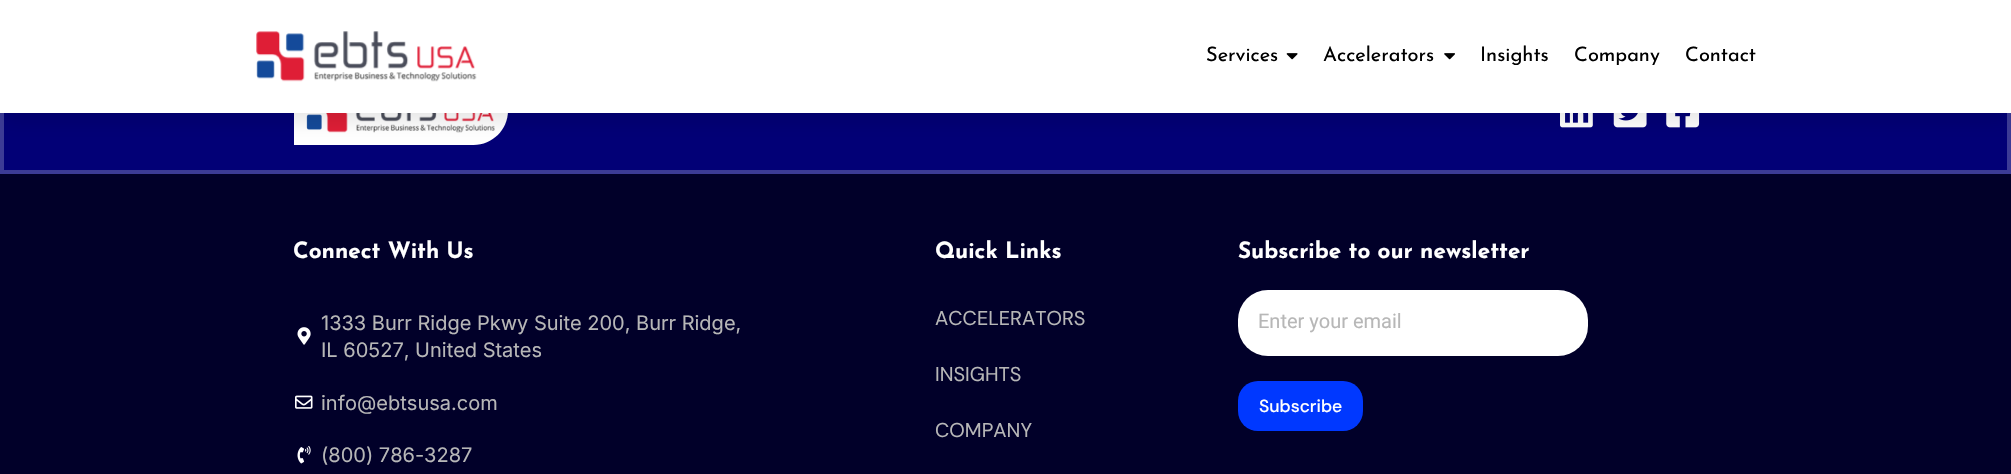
#include "include/core/SkBlurTypes.h"
#include "include/core/SkCanvas.h"
#include "include/core/SkData.h"
#include "include/core/SkFont.h"
#include "include/core/SkFontMgr.h"
#include "include/core/SkImage.h"
#include "include/core/SkMaskFilter.h"
#include "include/core/SkPaint.h"
#include "include/core/SkPathBuilder.h"
#include "include/core/SkTextBlob.h"
#include "include/effects/SkDashPathEffect.h"
#include "include/effects/SkGradientShader.h"
#include "include/utils/SkParsePath.h"

extern sk_sp<SkFontMgr> fontMgr;

static SkFont font(const char* family, int weight, float size, bool italic = false) {
    SkFontStyle style(weight, SkFontStyle::kNormal_Width,
        italic ? SkFontStyle::kItalic_Slant : SkFontStyle::kUpright_Slant);
    SkFont result(fontMgr->matchFamilyStyle(family, style), size);
    result.setSubpixel(true);
    return result;
}

static void drawLabel(SkCanvas* canvas, const char* s, float x, float y, const SkFont& font, SkColor color) {
    SkPaint ink(SkColor4f::FromColor(color));
    ink.setAntiAlias(true);
    canvas->drawString(s, x, y, font, ink);
}

static void fillRect(SkCanvas* canvas, float x, float y, float w, float h, SkColor color) {
    SkPaint ink(SkColor4f::FromColor(color));
    ink.setAntiAlias(true);
    canvas->drawRect(SkRect::MakeXYWH(x, y, w, h), ink);
}

static void fillRRect(SkCanvas* canvas, float x, float y, float w, float h, float radius, SkColor color) {
    SkPaint ink(SkColor4f::FromColor(color));
    ink.setAntiAlias(true);
    canvas->drawRoundRect(SkRect::MakeXYWH(x, y, w, h), radius, radius, ink);
}

static void drawPhoto(SkCanvas* canvas, const char* path, float x, float y, float w, float h) {
    auto image = SkImages::DeferredFromEncodedData(SkData::MakeFromFileName(path));
    canvas->drawImageRect(image, SkRect::MakeXYWH(x, y, w, h), SkSamplingOptions());
}

static SkPath parsePath(const char* data, bool evenOdd = false) {
    SkPath result = *SkParsePath::FromSVGString(data);
    if (evenOdd) result.setFillType(SkPathFillType::kEvenOdd);
    return result;
}

void draw(SkCanvas* canvas) {
    SkPaint paint;
    paint.setAntiAlias(true);
    canvas->clear(0xFF020076);
    paint.setStroke(true);
    paint.setStrokeWidth(4);
    paint.setColor(0xFF3C3B96);
    canvas->drawRect(SkRect::MakeXYWH(2, 50, 2007, 122), paint);
    paint.setStroke(false);
    paint.setColor(0xFFFFFFFF);
    canvas->drawPath(parsePath("M294 76H473.5C492.5 76 508 91.5 508 110.5C508 129.5 492.5 145 473.5 145H294Z"), paint);
    drawPhoto(canvas, "assets/img4.png", 306, 113, 189, 20);
    drawPhoto(canvas, "assets/img5.png", 1560, 113, 33, 15);
    drawPhoto(canvas, "assets/img6.png", 1613, 113, 34, 15);
    drawPhoto(canvas, "assets/img7.png", 1666, 113, 34, 15);
    paint.setColor(0x1A000000);
    paint.setMaskFilter(SkMaskFilter::MakeBlur(kNormal_SkBlurStyle, 9));
    canvas->drawRect(SkRect::MakeXYWH(4, 16, 2004, 105), paint);
    paint.setMaskFilter(nullptr);
    fillRect(canvas, 0, 0, 2011, 113, 0xFFFFFFFF);
    drawPhoto(canvas, "assets/img1.png", 256, 31, 221, 51);
    SkFont font1 = font("Josefin Sans", 400, 20);
    drawLabel(canvas, "Services", 1206, 61, font1, 0xFF000000);
    drawPhoto(canvas, "assets/img2.png", 1286, 53, 12, 7);
    drawLabel(canvas, "Accelerators", 1323, 61, font1, 0xFF000000);
    drawPhoto(canvas, "assets/img3.png", 1444, 53, 11, 7);
    drawLabel(canvas, "Insights", 1480, 61, font1, 0xFF000000);
    drawLabel(canvas, "Company", 1574, 61, font1, 0xFF000000);
    drawLabel(canvas, "Contact", 1685, 61, font1, 0xFF000000);
    fillRect(canvas, 0, 174, 2011, 300, 0xFF010029);
    SkFont font2 = font("Josefin Sans", 700, 22.5f);
    drawLabel(canvas, "Connect With Us", 293, 258, font2, 0xFFFFFFFF);
    drawPhoto(canvas, "assets/img8.png", 297, 327, 14, 18);
    SkFont font3 = font("Inter", 400, 20);
    drawLabel(canvas, "1333 Burr Ridge Pkwy Suite 200, Burr Ridge,", 321, 330, font3, 0xFFB7B7B7);
    drawLabel(canvas, "IL 60527, United States", 321, 357, font3, 0xFFB7B7B7);
    drawPhoto(canvas, "assets/img9.png", 295, 395, 18, 14);
    drawLabel(canvas, "info@ebtsusa.com", 321, 410, font3, 0xFFB7B7B7);
    drawPhoto(canvas, "assets/img10.png", 297, 446, 14, 18);
    drawLabel(canvas, "(800) 786-3287", 321, 462, font3, 0xFFB7B7B7);
    drawLabel(canvas, "Quick Links", 935, 258, font2, 0xFFFFFFFF);
    SkFont font4 = font("DM Sans", 400, 20);
    drawLabel(canvas, "ACCELERATORS", 935, 325, font4, 0xFFB7B7B7);
    drawLabel(canvas, "INSIGHTS", 935, 381, font4, 0xFFB7B7B7);
    drawLabel(canvas, "COMPANY", 935, 437, font4, 0xFFB7B7B7);
    drawLabel(canvas, "Subscribe to our newsletter", 1238, 258, font2, 0xFFFFFFFF);
    fillRRect(canvas, 1238, 290, 350, 66, 30, 0xFFFFFFFF);
    SkFont font5 = font("Roboto", 400, 20);
    drawLabel(canvas, "Enter your email", 1258, 328, font5, 0xFFB7B7B7);
    fillRRect(canvas, 1238, 381, 125, 50, 20, 0xFF0038FF);
    SkFont font6 = font("DM Sans", 500, 17.5f);
    drawLabel(canvas, "Subscribe", 1259, 412, font6, 0xFFFFFFFF);
}
